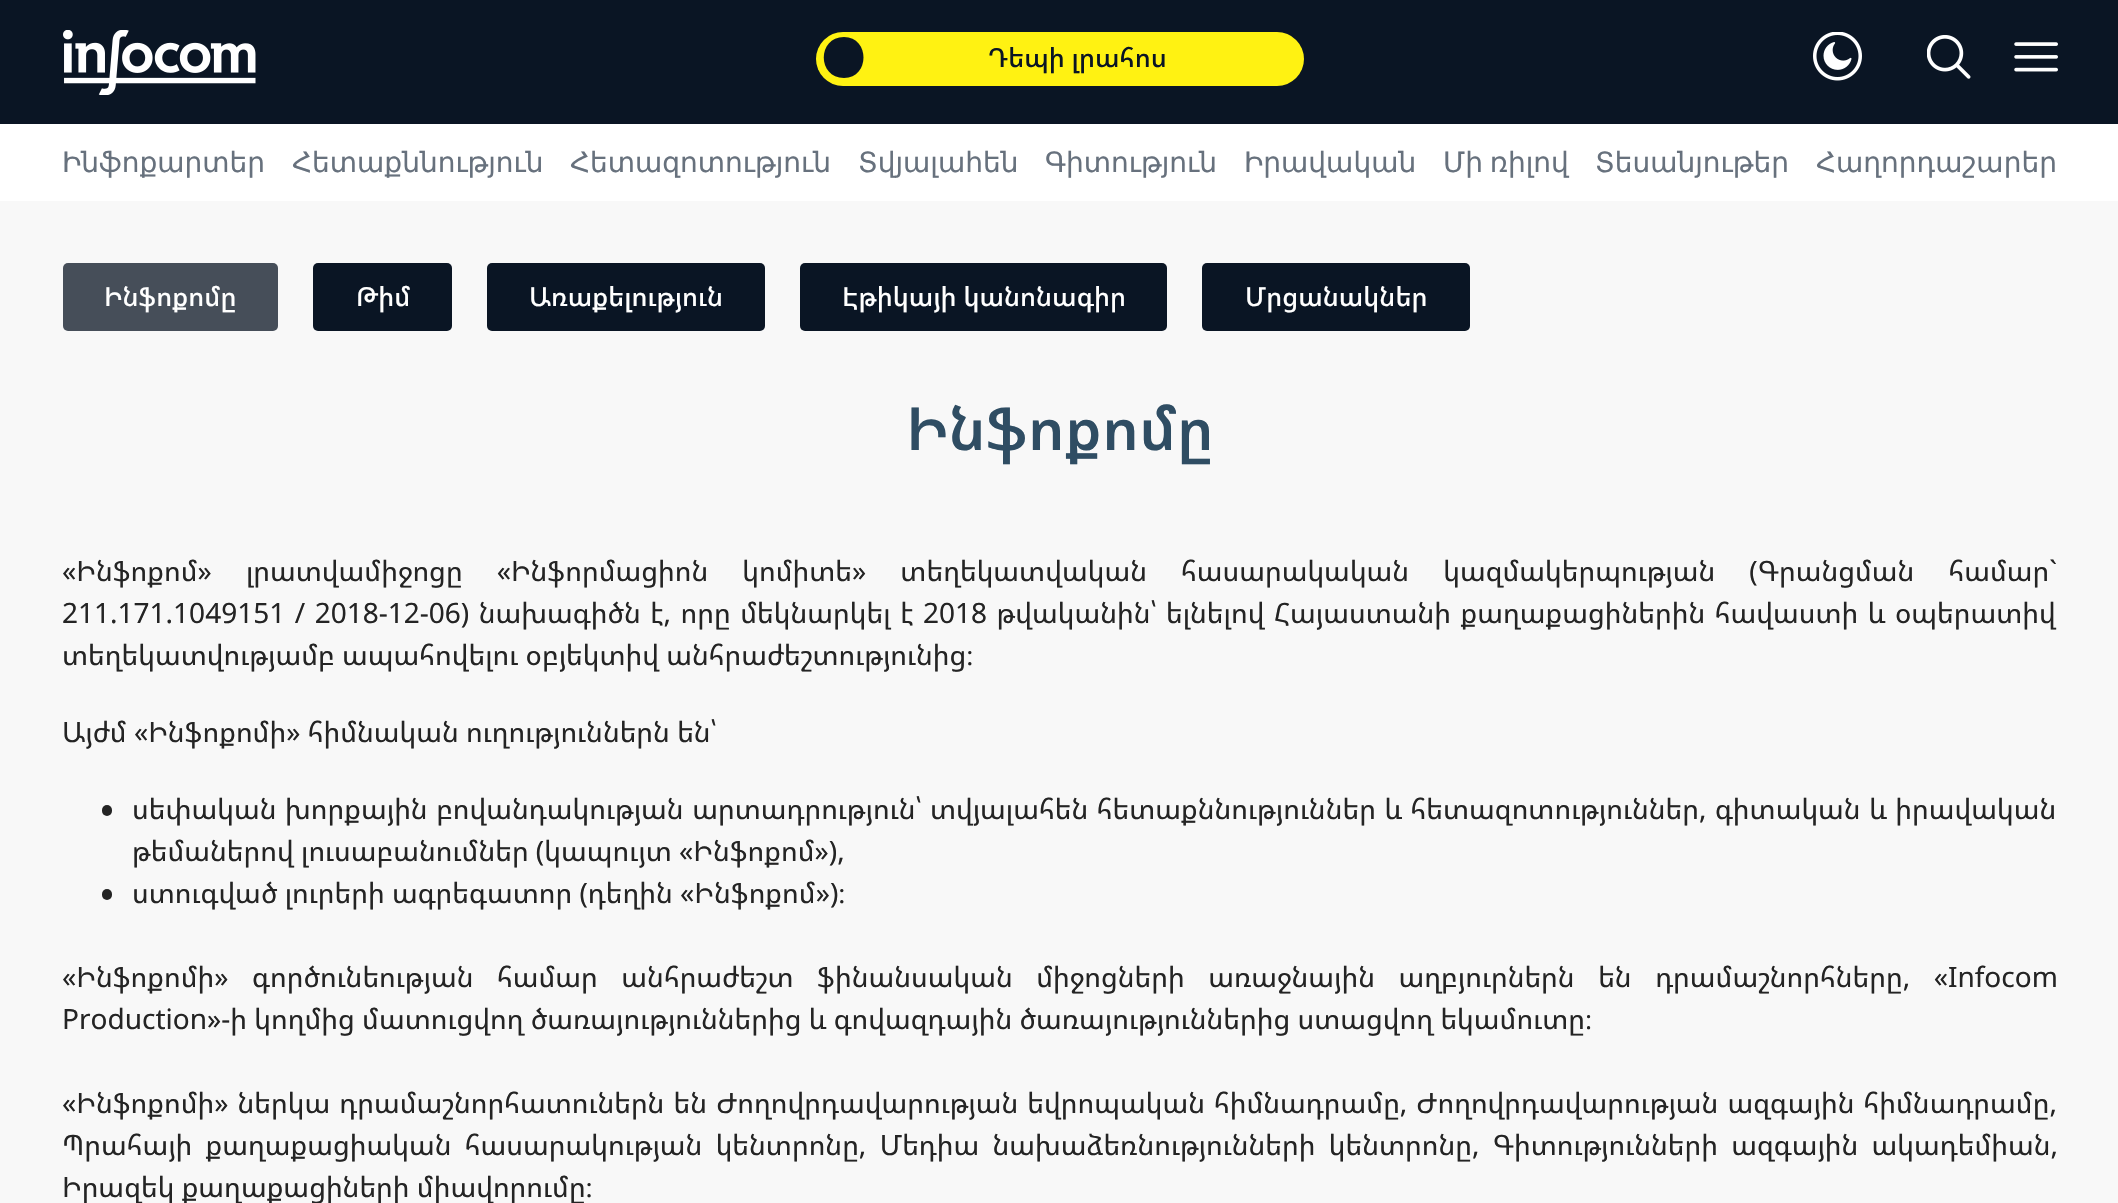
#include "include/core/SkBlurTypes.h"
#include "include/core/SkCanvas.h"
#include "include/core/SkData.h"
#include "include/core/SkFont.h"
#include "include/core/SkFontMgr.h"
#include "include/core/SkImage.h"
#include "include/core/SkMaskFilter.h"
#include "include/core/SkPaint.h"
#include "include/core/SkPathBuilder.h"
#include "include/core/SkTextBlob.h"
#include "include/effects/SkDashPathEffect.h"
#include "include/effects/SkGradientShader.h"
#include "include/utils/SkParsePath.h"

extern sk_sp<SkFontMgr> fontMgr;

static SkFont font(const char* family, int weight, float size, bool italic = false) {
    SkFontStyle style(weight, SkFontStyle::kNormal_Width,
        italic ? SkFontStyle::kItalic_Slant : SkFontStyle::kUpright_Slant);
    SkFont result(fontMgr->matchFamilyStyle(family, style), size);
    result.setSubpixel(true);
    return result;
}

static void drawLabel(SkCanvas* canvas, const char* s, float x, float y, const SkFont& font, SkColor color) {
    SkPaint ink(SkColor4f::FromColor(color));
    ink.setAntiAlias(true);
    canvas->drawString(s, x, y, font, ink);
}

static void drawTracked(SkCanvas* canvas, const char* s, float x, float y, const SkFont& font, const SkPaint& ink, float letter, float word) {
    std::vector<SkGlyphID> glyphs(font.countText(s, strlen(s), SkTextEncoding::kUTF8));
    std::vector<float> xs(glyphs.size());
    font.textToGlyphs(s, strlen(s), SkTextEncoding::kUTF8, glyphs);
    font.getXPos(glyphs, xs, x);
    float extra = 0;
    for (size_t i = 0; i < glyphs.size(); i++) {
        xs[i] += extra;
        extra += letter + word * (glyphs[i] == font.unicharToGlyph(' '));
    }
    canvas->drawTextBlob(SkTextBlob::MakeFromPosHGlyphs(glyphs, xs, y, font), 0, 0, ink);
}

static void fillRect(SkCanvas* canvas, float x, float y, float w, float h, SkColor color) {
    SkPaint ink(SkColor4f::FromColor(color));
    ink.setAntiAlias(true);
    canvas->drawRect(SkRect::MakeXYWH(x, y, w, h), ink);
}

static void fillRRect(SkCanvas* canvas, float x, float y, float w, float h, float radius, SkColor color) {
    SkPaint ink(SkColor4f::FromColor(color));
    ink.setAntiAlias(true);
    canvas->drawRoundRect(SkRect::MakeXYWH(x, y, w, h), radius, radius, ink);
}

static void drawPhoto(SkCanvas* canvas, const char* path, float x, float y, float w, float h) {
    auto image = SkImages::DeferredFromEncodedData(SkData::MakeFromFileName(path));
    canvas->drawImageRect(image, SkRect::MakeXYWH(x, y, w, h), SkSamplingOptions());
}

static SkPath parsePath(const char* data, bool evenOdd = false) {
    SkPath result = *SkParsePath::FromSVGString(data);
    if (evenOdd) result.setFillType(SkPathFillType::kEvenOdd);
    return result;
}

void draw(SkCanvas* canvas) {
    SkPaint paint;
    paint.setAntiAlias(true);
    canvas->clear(0xFFF8F8F8);
    fillRect(canvas, 0, 0, 2118, 124, 0xFF0A1524);
    drawPhoto(canvas, "assets/img1.png", 63, 30, 193, 65);
    fillRRect(canvas, 816, 32, 488, 54, 27, 0xFFFFF212);
    paint.setColor(0xFF0A1524);
    canvas->drawPath(parsePath("M844 37C817 37 817 78 844 78C870 78 870 37 844 37Z"), paint);
    SkFont font1 = font("Noto Sans Armenian", 500, 26.25f);
    drawLabel(canvas, "Դեպի լրահոս", 988, 67, font1, 0xFF0A1524);
    drawPhoto(canvas, "assets/img2.png", 1813, 32, 49, 49);
    drawPhoto(canvas, "assets/img3.png", 1927, 35, 44, 44);
    drawPhoto(canvas, "assets/img4.png", 2014, 42, 44, 30);
    fillRect(canvas, 0, 124, 2118, 77, 0xFFFFFFFF);
    SkFont font2 = font("DejaVu Sans", 400, 28);
    drawLabel(canvas, "Ինֆոքարտեր", 62, 172, font2, 0xFF67717D);
    drawLabel(canvas, "Հետաքննություն", 292, 172, font2, 0xFF67717D);
    drawLabel(canvas, "Հետազոտություն", 570, 172, font2, 0xFF67717D);
    drawLabel(canvas, "Տվյալահեն", 858, 172, font2, 0xFF67717D);
    drawLabel(canvas, "Գիտություն", 1045, 172, font2, 0xFF67717D);
    drawLabel(canvas, "Իրավական", 1244, 172, font2, 0xFF67717D);
    paint.setColor(0xFF67717D);
    drawTracked(canvas, "Մի ռիլով", 1443, 172, font2, paint, 0, -2);
    drawLabel(canvas, "Տեսանյութեր", 1595, 172, font2, 0xFF67717D);
    drawLabel(canvas, "Հաղորդաշարեր", 1816, 172, font2, 0xFF67717D);
    fillRRect(canvas, 63, 263, 215, 68, 5, 0xFF464E59);
    drawLabel(canvas, "Ինֆոքոմը", 104, 306, font1, 0xFFFFFFFF);
    fillRRect(canvas, 313, 263, 139, 68, 5, 0xFF0A1524);
    drawLabel(canvas, "Թիմ", 356, 306, font1, 0xFFFFFFFF);
    fillRRect(canvas, 487, 263, 278, 68, 5, 0xFF0A1524);
    drawLabel(canvas, "Առաքելություն", 529, 306, font1, 0xFFFFFFFF);
    fillRRect(canvas, 800, 263, 367, 68, 5, 0xFF0A1524);
    drawLabel(canvas, "Էթիկայի կանոնագիր", 842, 306, font1, 0xFFFFFFFF);
    fillRRect(canvas, 1202, 263, 268, 68, 5, 0xFF0A1524);
    drawLabel(canvas, "Մրցանակներ", 1245, 306, font1, 0xFFFFFFFF);
    SkFont font3 = font("Noto Sans Armenian", 600, 59.5f);
    drawLabel(canvas, "Ինֆոքոմը", 906, 450, font3, 0xFF2F4D63);
    SkFont font4 = font("Noto Sans Armenian", 400, 28);
    paint.setColor(0xFF242424);
    drawTracked(canvas, "«Ինֆոքոմ» լրատվամիջոցը «Ինֆորմացիոն կոմիտե» տեղեկատվական հասարակական կազմակերպության (Գրանցման համար`", 62, 581, font4, paint, 0, 26.75f);
    drawTracked(canvas, "211.171.1049151 / 2018-12-06) նախագիծն է, որը մեկնարկել է 2018 թվականին՝ ելնելով Հայաստանի քաղաքացիներին հավաստի և օպերատիվ", 62, 623, font4, paint, 0, 2.25f);
    drawLabel(canvas, "տեղեկատվությամբ ապահովելու օբյեկտիվ անհրաժեշտությունից։", 62, 665, font4, 0xFF242424);
    drawLabel(canvas, "Այժմ «Ինֆոքոմի» հիմնական ուղություններն են՝", 62, 742, font4, 0xFF242424);
    fillRRect(canvas, 102, 805, 10, 11, 5, 0xFF242424);
    drawTracked(canvas, "սեփական խորքային բովանդակության արտադրություն՝ տվյալահեն հետաքննություններ և հետազոտություններ, գիտական և իրավական", 132, 819, font4, paint, 0, 1.25f);
    drawLabel(canvas, "թեմաներով լուսաբանումներ (կապույտ «Ինֆոքոմ»),", 132, 861, font4, 0xFF242424);
    fillRRect(canvas, 102, 889, 10, 11, 5, 0xFF242424);
    drawLabel(canvas, "ստուգված լուրերի ագրեգատոր (դեղին «Ինֆոքոմ»)։", 132, 903, font4, 0xFF242424);
    drawTracked(canvas, "«Ինֆոքոմի» գործունեության համար անհրաժեշտ ֆինանսական միջոցների առաջնային աղբյուրներն են դրամաշնորհները, «Infocom", 62, 987, font4, paint, 0, 16.25f);
    drawLabel(canvas, "Production»-ի կողմից մատուցվող ծառայություններից և գովազդային ծառայություններից ստացվող եկամուտը։", 62, 1029, font4, 0xFF242424);
    drawTracked(canvas, "«Ինֆոքոմի» ներկա դրամաշնորհատուներն են Ժողովրդավարության եվրոպական հիմնադրամը,", 62, 1113, font4, paint, 0, 1.75f);
    drawTracked(canvas, "Ժողովրդավարության ազգային հիմնադրամը,", 1416, 1113, font4, paint, 0, 1.75f);
    drawTracked(canvas, "Պրահայի քաղաքացիական հասարակության կենտրոնը, Մեդիա նախաձեռնությունների կենտրոնը, Գիտությունների ազգային ակադեմիան,", 62, 1155, font4, paint, 0, 6);
    drawLabel(canvas, "Իրազեկ քաղաքացիների միավորումը։", 62, 1197, font4, 0xFF242424);
}
